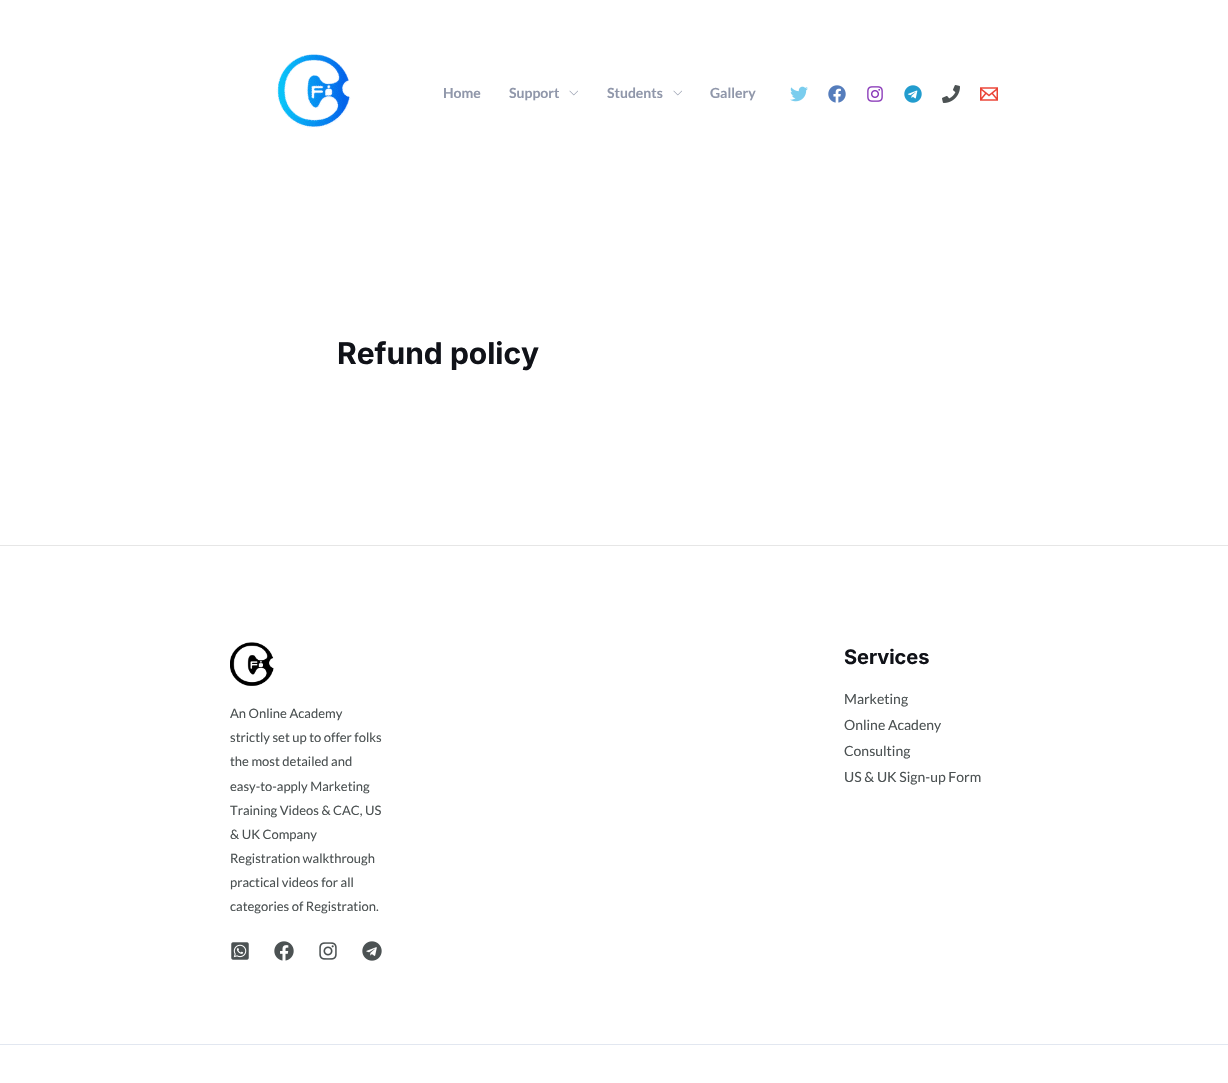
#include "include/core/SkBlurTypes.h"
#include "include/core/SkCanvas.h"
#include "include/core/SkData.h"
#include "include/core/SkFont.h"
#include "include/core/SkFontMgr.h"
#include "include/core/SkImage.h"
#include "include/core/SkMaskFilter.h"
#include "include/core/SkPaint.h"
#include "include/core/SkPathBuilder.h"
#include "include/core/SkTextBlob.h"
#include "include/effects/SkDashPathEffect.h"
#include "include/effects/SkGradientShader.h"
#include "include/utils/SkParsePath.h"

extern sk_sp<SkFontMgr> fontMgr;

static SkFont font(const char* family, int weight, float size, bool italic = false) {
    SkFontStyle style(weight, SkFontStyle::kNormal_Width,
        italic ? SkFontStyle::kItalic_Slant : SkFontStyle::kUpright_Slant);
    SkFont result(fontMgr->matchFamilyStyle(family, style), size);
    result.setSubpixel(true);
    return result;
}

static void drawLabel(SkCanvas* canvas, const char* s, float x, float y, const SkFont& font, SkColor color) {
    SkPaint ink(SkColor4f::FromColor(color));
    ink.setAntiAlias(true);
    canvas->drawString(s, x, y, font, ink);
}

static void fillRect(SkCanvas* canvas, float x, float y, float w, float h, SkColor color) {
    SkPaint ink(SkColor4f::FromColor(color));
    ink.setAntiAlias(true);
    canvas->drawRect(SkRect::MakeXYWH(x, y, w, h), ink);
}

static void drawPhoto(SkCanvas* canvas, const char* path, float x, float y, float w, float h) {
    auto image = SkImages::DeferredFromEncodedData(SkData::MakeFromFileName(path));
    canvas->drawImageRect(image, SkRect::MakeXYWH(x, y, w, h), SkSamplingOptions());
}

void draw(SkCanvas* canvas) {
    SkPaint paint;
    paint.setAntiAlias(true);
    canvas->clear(0xFFFFFFFF);
    drawPhoto(canvas, "assets/img1.png", 276, 54, 75, 74);
    SkFont font1 = font("Lato", 700, 14);
    drawLabel(canvas, "Home", 443, 98, font1, 0xFF9097AA);
    drawLabel(canvas, "Support", 509, 98, font1, 0xFF9097AA);
    drawPhoto(canvas, "assets/img2.png", 569, 90, 9, 6);
    drawLabel(canvas, "Students", 607, 98, font1, 0xFF9097AA);
    drawPhoto(canvas, "assets/img2.png", 673, 90, 9, 6);
    drawLabel(canvas, "Gallery", 710, 98, font1, 0xFF9097AA);
    drawPhoto(canvas, "assets/img3.png", 790, 86, 18, 16);
    drawPhoto(canvas, "assets/img4.png", 828, 85, 18, 18);
    drawPhoto(canvas, "assets/img5.png", 867, 86, 16, 16);
    drawPhoto(canvas, "assets/img6.png", 904, 85, 18, 18);
    drawPhoto(canvas, "assets/img7.png", 942, 85, 18, 18);
    drawPhoto(canvas, "assets/img8.png", 980, 87, 18, 14);
    SkFont font2 = font("Inter", 700, 30);
    drawLabel(canvas, "Refund policy", 337, 364, font2, 0xFF101218);
    fillRect(canvas, 0, 545, 1228, 1, 0xFFE6E6E6);
    drawPhoto(canvas, "assets/img9.png", 230, 642, 44, 44);
    SkFont font3 = font("Lato", 400, 13);
    drawLabel(canvas, "An Online Academy", 230, 718, font3, 0xFF4C5253);
    drawLabel(canvas, "strictly set up to offer folks", 230, 742, font3, 0xFF4C5253);
    drawLabel(canvas, "the most detailed and", 230, 766, font3, 0xFF4C5253);
    drawLabel(canvas, "easy-to-apply Marketing", 230, 791, font3, 0xFF4C5253);
    drawLabel(canvas, "Training Videos & CAC, US", 230, 815, font3, 0xFF4C5253);
    drawLabel(canvas, "& UK Company", 230, 839, font3, 0xFF4C5253);
    drawLabel(canvas, "Registration walkthrough", 230, 863, font3, 0xFF4C5253);
    drawLabel(canvas, "practical videos for all", 230, 887, font3, 0xFF4C5253);
    drawLabel(canvas, "categories of Registration.", 230, 911, font3, 0xFF4C5253);
    drawPhoto(canvas, "assets/img10.png", 231, 942, 18, 18);
    drawPhoto(canvas, "assets/img11.png", 274, 941, 20, 20);
    drawPhoto(canvas, "assets/img12.png", 319, 942, 18, 18);
    drawPhoto(canvas, "assets/img13.png", 362, 941, 20, 20);
    SkFont font4 = font("Inter", 700, 20);
    drawLabel(canvas, "Services", 844, 664, font4, 0xFF101218);
    SkFont font5 = font("Lato", 400, 14);
    drawLabel(canvas, "Marketing", 844, 704, font5, 0xFF4C5253);
    drawLabel(canvas, "Online Acadeny", 844, 730, font5, 0xFF4C5253);
    drawLabel(canvas, "Consulting", 844, 756, font5, 0xFF4C5253);
    drawLabel(canvas, "US & UK Sign-up Form", 844, 782, font5, 0xFF4C5253);
    fillRect(canvas, 0, 1044, 1228, 1, 0xFFE2E7F0);
}
